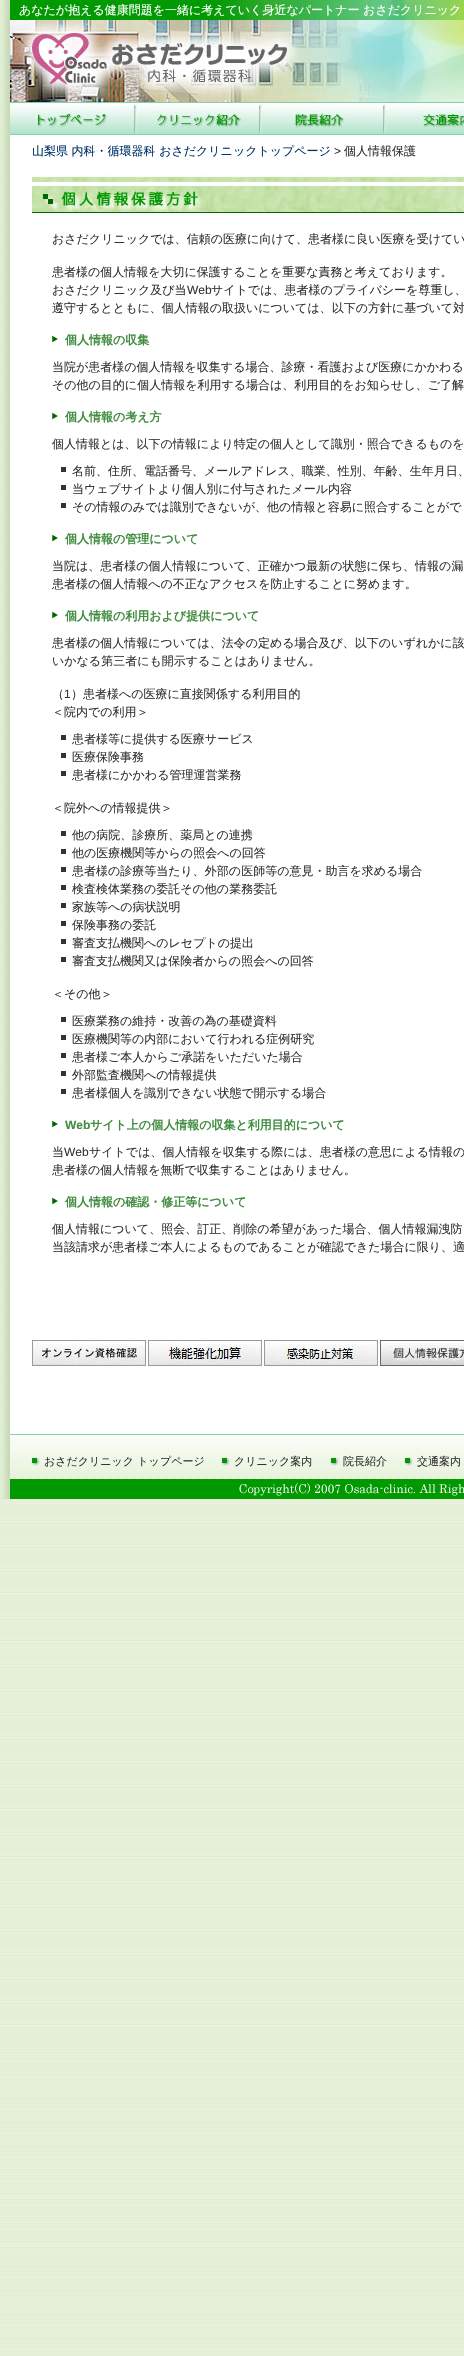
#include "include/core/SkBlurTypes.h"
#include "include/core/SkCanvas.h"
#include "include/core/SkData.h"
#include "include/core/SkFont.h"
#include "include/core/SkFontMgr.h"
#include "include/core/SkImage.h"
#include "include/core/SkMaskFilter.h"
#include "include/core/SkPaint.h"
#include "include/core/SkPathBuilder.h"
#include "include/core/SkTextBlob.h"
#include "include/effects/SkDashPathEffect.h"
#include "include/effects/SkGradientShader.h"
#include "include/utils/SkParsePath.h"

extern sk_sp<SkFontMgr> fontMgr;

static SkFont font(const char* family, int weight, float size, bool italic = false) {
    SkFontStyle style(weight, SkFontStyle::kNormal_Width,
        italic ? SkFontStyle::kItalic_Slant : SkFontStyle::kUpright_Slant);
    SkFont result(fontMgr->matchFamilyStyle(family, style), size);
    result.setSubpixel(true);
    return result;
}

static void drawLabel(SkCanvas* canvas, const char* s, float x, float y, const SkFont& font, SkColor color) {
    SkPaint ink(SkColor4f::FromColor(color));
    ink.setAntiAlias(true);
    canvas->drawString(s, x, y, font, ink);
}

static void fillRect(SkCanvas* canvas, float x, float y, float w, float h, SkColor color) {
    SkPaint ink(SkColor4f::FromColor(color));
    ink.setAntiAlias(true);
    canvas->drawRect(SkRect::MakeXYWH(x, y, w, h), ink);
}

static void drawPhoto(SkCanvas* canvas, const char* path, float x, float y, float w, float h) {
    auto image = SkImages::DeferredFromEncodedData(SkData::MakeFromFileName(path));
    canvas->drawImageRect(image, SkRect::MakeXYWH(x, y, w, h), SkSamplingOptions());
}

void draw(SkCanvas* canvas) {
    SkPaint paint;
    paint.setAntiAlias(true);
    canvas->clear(0xFFFFFFFF);
    drawPhoto(canvas, "assets/img1.png", 0, 1499, 464, 857);
    drawPhoto(canvas, "assets/img2.png", 0, 0, 10, 1499);
    drawPhoto(canvas, "assets/img3.png", 10, 0, 454, 20);
    SkFont font1 = font("WenQuanYi Zen Hei", 500, 12);
    drawLabel(canvas, "あなたが抱える健康問題を一緒に考えていく身近なパートナー おさだクリニック", 19, 14, font1, 0xFFFFFFFF);
    drawPhoto(canvas, "assets/img4.png", 10, 20, 291, 82);
    drawPhoto(canvas, "assets/img5.png", 24, 26, 277, 66);
    drawPhoto(canvas, "assets/img6.png", 301, 20, 163, 82);
    fillRect(canvas, 10, 102, 454, 1, 0xFF7ED3A9);
    fillRect(canvas, 10, 134, 454, 1, 0xFF7ED3A9);
    drawPhoto(canvas, "assets/img7.png", 10, 103, 125, 31);
    drawPhoto(canvas, "assets/img8.png", 135, 103, 125, 31);
    drawPhoto(canvas, "assets/img9.png", 260, 103, 124, 31);
    drawPhoto(canvas, "assets/img10.png", 384, 103, 80, 31);
    drawLabel(canvas, "山梨県 内科・循環器科 おさだクリニックトップページ", 32, 155, font1, 0xFF003366);
    SkFont font2 = font("Liberation Sans", 400, 12);
    drawLabel(canvas, ">", 334, 155, font2, 0xFF333333);
    drawLabel(canvas, "個人情報保護", 344, 155, font1, 0xFF333333);
    drawPhoto(canvas, "assets/img11.png", 32, 174, 432, 40);
    drawLabel(canvas, "おさだクリニックでは、信頼の医療に向けて、患者様に良い医療を受けてい", 52, 243, font1, 0xFF333333);
    drawLabel(canvas, "患者様の個人情報を大切に保護することを重要な責務と考えております。", 52, 276, font1, 0xFF333333);
    drawLabel(canvas, "おさだクリニック及び当", 52, 294, font1, 0xFF333333);
    drawLabel(canvas, "Web", 187, 294, font2, 0xFF333333);
    drawLabel(canvas, "サイトでは、患者様のプライバシーを尊重し、", 211, 294, font1, 0xFF333333);
    drawLabel(canvas, "遵守するとともに、個人情報の取扱いについては、以下の方針に基づいて対", 52, 312, font1, 0xFF333333);
    drawPhoto(canvas, "assets/img12.png", 52, 335, 6, 8);
    SkFont font3 = font("WenQuanYi Zen Hei", 700, 12);
    drawLabel(canvas, "個人情報の収集", 65, 344, font3, 0xFF408C40);
    drawLabel(canvas, "当院が患者様の個人情報を収集する場合、診療・看護および医療にかかわる", 52, 371, font1, 0xFF333333);
    drawLabel(canvas, "その他の目的に個人情報を利用する場合は、利用目的をお知らせし、ご了解", 52, 389, font1, 0xFF333333);
    drawPhoto(canvas, "assets/img12.png", 52, 412, 6, 8);
    drawLabel(canvas, "個人情報の考え方", 65, 421, font3, 0xFF408C40);
    drawLabel(canvas, "個人情報とは、以下の情報により特定の個人として識別・照合できるものを", 52, 448, font1, 0xFF333333);
    fillRect(canvas, 61, 467, 5, 5, 0xFF333333);
    drawLabel(canvas, "名前、住所、電話番号、メールアドレス、職業、性別、年齢、生年月日、", 72, 475, font1, 0xFF333333);
    fillRect(canvas, 61, 485, 5, 5, 0xFF333333);
    drawLabel(canvas, "当ウェブサイトより個人別に付与されたメール内容", 72, 493, font1, 0xFF333333);
    fillRect(canvas, 61, 503, 5, 5, 0xFF333333);
    drawLabel(canvas, "その情報のみでは識別できないが、他の情報と容易に照合することがで", 72, 511, font1, 0xFF333333);
    drawPhoto(canvas, "assets/img12.png", 52, 534, 6, 8);
    drawLabel(canvas, "個人情報の管理について", 65, 543, font3, 0xFF408C40);
    drawLabel(canvas, "当院は、患者様の個人情報について、正確かつ最新の状態に保ち、情報の漏", 52, 570, font1, 0xFF333333);
    drawLabel(canvas, "患者様の個人情報への不正なアクセスを防止することに努めます。", 52, 588, font1, 0xFF333333);
    drawPhoto(canvas, "assets/img12.png", 52, 611, 6, 8);
    drawLabel(canvas, "個人情報の利用および提供について", 65, 620, font3, 0xFF408C40);
    drawLabel(canvas, "患者様の個人情報については、法令の定める場合及び、以下のいずれかに該", 52, 647, font1, 0xFF333333);
    drawLabel(canvas, "いかなる第三者にも開示することはありません。", 52, 665, font1, 0xFF333333);
    drawLabel(canvas, "（", 52, 698, font1, 0xFF333333);
    drawLabel(canvas, "1", 64, 698, font2, 0xFF333333);
    drawLabel(canvas, "）患者様への医療に直接関係する利用目的", 71, 698, font1, 0xFF333333);
    drawLabel(canvas, "＜院内での利用＞", 52, 716, font1, 0xFF333333);
    fillRect(canvas, 61, 735, 5, 5, 0xFF333333);
    drawLabel(canvas, "患者様等に提供する医療サービス", 72, 743, font1, 0xFF333333);
    fillRect(canvas, 61, 753, 5, 5, 0xFF333333);
    drawLabel(canvas, "医療保険事務", 72, 761, font1, 0xFF333333);
    fillRect(canvas, 61, 771, 5, 5, 0xFF333333);
    drawLabel(canvas, "患者様にかかわる管理運営業務", 72, 779, font1, 0xFF333333);
    drawLabel(canvas, "＜院外への情報提供＞", 52, 812, font1, 0xFF333333);
    fillRect(canvas, 61, 831, 5, 5, 0xFF333333);
    drawLabel(canvas, "他の病院、診療所、薬局との連携", 72, 839, font1, 0xFF333333);
    fillRect(canvas, 61, 849, 5, 5, 0xFF333333);
    drawLabel(canvas, "他の医療機関等からの照会への回答", 72, 857, font1, 0xFF333333);
    fillRect(canvas, 61, 867, 5, 5, 0xFF333333);
    drawLabel(canvas, "患者様の診療等当たり、外部の医師等の意見・助言を求める場合", 72, 875, font1, 0xFF333333);
    fillRect(canvas, 61, 885, 5, 5, 0xFF333333);
    drawLabel(canvas, "検査検体業務の委託その他の業務委託", 72, 893, font1, 0xFF333333);
    fillRect(canvas, 61, 903, 5, 5, 0xFF333333);
    drawLabel(canvas, "家族等への病状説明", 72, 911, font1, 0xFF333333);
    fillRect(canvas, 61, 921, 5, 5, 0xFF333333);
    drawLabel(canvas, "保険事務の委託", 72, 929, font1, 0xFF333333);
    fillRect(canvas, 61, 939, 5, 5, 0xFF333333);
    drawLabel(canvas, "審査支払機関へのレセプトの提出", 72, 947, font1, 0xFF333333);
    fillRect(canvas, 61, 957, 5, 5, 0xFF333333);
    drawLabel(canvas, "審査支払機関又は保険者からの照会への回答", 72, 965, font1, 0xFF333333);
    drawLabel(canvas, "＜その他＞", 52, 998, font1, 0xFF333333);
    fillRect(canvas, 61, 1017, 5, 5, 0xFF333333);
    drawLabel(canvas, "医療業務の維持・改善の為の基礎資料", 72, 1025, font1, 0xFF333333);
    fillRect(canvas, 61, 1035, 5, 5, 0xFF333333);
    drawLabel(canvas, "医療機関等の内部において行われる症例研究", 72, 1043, font1, 0xFF333333);
    fillRect(canvas, 61, 1053, 5, 5, 0xFF333333);
    drawLabel(canvas, "患者様ご本人からご承諾をいただいた場合", 72, 1061, font1, 0xFF333333);
    fillRect(canvas, 61, 1071, 5, 5, 0xFF333333);
    drawLabel(canvas, "外部監査機関への情報提供", 72, 1079, font1, 0xFF333333);
    fillRect(canvas, 61, 1089, 5, 5, 0xFF333333);
    drawLabel(canvas, "患者様個人を識別できない状態で開示する場合", 72, 1097, font1, 0xFF333333);
    drawPhoto(canvas, "assets/img12.png", 52, 1120, 6, 8);
    SkFont font4 = font("Liberation Sans", 700, 12);
    drawLabel(canvas, "Web", 65, 1129, font4, 0xFF408C40);
    drawLabel(canvas, "サイト上の個人情報の収集と利用目的について", 90, 1129, font3, 0xFF408C40);
    drawLabel(canvas, "当", 52, 1156, font1, 0xFF333333);
    drawLabel(canvas, "Web", 64, 1156, font2, 0xFF333333);
    drawLabel(canvas, "サイトでは、個人情報を収集する際には、患者様の意思による情報の", 89, 1156, font1, 0xFF333333);
    drawLabel(canvas, "患者様の個人情報を無断で収集することはありません。", 52, 1174, font1, 0xFF333333);
    drawPhoto(canvas, "assets/img12.png", 52, 1197, 6, 8);
    drawLabel(canvas, "個人情報の確認・修正等について", 65, 1206, font3, 0xFF408C40);
    drawLabel(canvas, "個人情報について、照会、訂正、削除の希望があった場合、個人情報漏洩防", 52, 1233, font1, 0xFF333333);
    drawLabel(canvas, "当該請求が患者様ご本人によるものであることが確認できた場合に限り、適", 52, 1251, font1, 0xFF333333);
    drawPhoto(canvas, "assets/img13.png", 32, 1340, 114, 26);
    drawPhoto(canvas, "assets/img14.png", 148, 1340, 114, 26);
    drawPhoto(canvas, "assets/img15.png", 264, 1340, 114, 26);
    drawPhoto(canvas, "assets/img16.png", 380, 1340, 84, 26);
    drawPhoto(canvas, "assets/img17.png", 10, 1434, 454, 45);
    drawPhoto(canvas, "assets/img18.png", 31, 1457, 9, 9);
    SkFont font5 = font("WenQuanYi Zen Hei", 500, 11);
    drawLabel(canvas, "おさだクリニック トップページ", 44, 1465, font5, 0xFF333333);
    drawPhoto(canvas, "assets/img19.png", 221, 1457, 9, 9);
    drawLabel(canvas, "クリニック案内", 234, 1465, font5, 0xFF333333);
    drawPhoto(canvas, "assets/img20.png", 330, 1457, 9, 9);
    drawLabel(canvas, "院長紹介", 343, 1465, font5, 0xFF333333);
    drawPhoto(canvas, "assets/img18.png", 404, 1457, 9, 9);
    drawLabel(canvas, "交通案内", 417, 1465, font5, 0xFF333333);
    fillRect(canvas, 10, 1479, 454, 20, 0xFF009900);
    drawPhoto(canvas, "assets/img21.png", 239, 1482, 225, 14);
}
